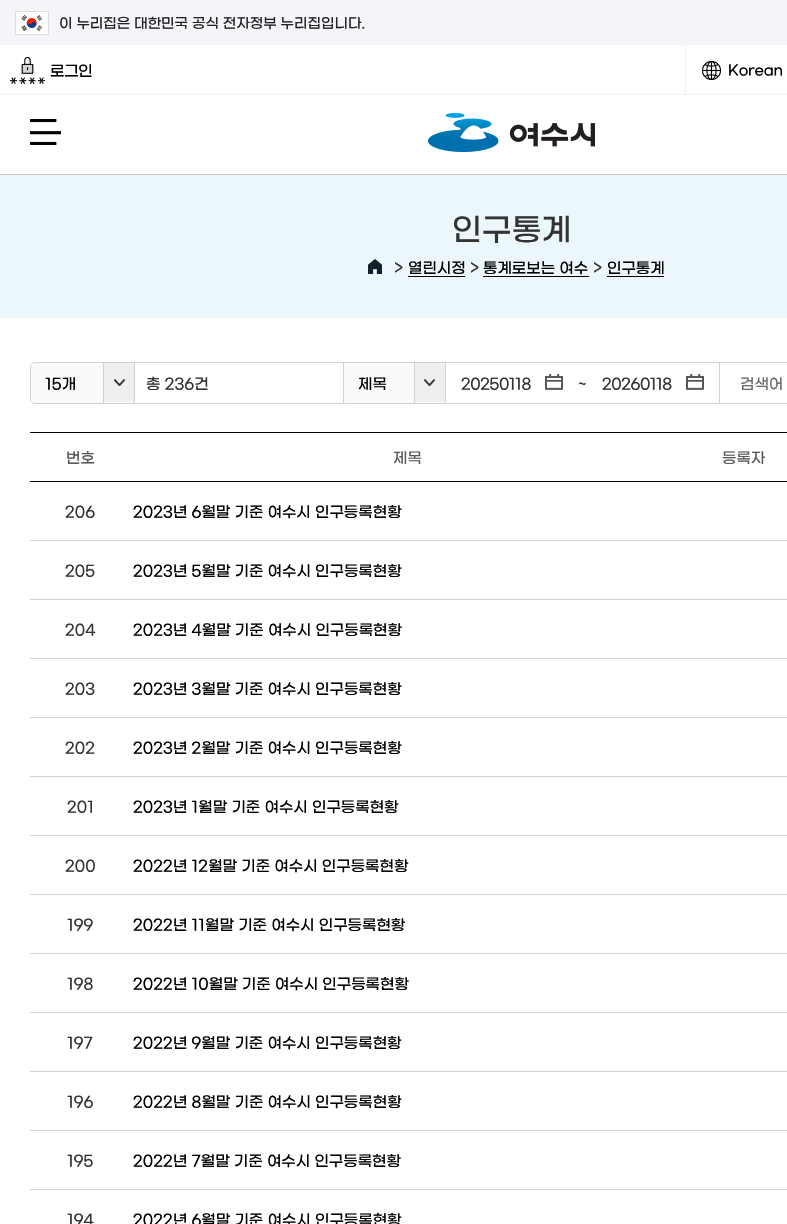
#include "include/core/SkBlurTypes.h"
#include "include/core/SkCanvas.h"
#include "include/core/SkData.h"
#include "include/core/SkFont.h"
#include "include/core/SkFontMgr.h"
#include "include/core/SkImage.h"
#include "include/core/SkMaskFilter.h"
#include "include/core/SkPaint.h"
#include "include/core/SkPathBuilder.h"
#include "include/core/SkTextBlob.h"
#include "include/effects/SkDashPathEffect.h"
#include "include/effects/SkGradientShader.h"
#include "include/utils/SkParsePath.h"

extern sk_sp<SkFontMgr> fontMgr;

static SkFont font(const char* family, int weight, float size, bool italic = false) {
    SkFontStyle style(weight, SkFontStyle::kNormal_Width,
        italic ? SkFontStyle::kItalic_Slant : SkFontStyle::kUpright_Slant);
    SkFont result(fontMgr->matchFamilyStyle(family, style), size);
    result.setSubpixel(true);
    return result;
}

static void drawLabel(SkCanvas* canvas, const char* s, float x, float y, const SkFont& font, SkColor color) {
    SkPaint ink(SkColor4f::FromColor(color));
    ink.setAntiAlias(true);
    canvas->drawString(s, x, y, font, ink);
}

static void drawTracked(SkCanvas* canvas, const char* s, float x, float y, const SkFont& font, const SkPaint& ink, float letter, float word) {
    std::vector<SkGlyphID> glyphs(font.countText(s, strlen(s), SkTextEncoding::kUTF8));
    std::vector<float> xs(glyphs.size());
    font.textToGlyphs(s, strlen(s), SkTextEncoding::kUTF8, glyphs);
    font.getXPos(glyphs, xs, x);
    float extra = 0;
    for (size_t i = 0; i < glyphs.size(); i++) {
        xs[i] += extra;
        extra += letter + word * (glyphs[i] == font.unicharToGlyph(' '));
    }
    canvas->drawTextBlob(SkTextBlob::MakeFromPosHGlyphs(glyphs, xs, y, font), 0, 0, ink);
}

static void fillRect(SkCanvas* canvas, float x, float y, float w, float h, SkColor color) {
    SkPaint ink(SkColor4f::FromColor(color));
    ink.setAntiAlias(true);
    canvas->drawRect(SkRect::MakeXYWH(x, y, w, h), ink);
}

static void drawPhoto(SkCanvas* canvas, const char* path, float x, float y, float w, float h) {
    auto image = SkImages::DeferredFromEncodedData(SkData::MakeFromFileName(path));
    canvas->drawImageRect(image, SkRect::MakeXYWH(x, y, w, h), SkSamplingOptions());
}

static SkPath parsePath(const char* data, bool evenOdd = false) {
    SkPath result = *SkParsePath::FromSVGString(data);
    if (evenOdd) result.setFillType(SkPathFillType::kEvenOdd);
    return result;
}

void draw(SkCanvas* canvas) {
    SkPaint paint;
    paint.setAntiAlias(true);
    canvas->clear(0xFFFFFFFF);
    fillRect(canvas, 0, 0, 787, 45, 0xFFF4F5F9);
    fillRect(canvas, 16, 12, 32, 22, 0xFFFFFFFF);
    drawPhoto(canvas, "assets/img1.png", 21, 15, 21, 17);
    paint.setStroke(true);
    paint.setStrokeWidth(1);
    paint.setColor(0xFFDDDDDD);
    canvas->drawRect(SkRect::MakeXYWH(15.5f, 11.5f, 33, 23), paint);
    SkFont font1 = font("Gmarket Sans", 500, 14);
    drawLabel(canvas, "이 누리집은 대한민국 공식 전자정부 누리집입니다.", 59, 26, font1, 0xFF222222);
    fillRect(canvas, 0, 94, 787, 1, 0xFFEFEFEF);
    drawPhoto(canvas, "assets/img2.png", 10, 57, 35, 27);
    SkFont font2 = font("Gmarket Sans", 500, 15);
    paint.setStroke(false);
    paint.setColor(0xFF000000);
    drawTracked(canvas, "로그인", 50, 74, font2, paint, -0.25f, 0);
    fillRect(canvas, 685, 45, 1, 49, 0xFFEFEFEF);
    drawPhoto(canvas, "assets/img3.png", 702, 61, 19, 19);
    drawTracked(canvas, "Korean", 728, 73, font1, paint, -0.25f, 0);
    fillRect(canvas, 0, 174, 787, 1, 0xFFCACACA);
    drawPhoto(canvas, "assets/img4.png", 30, 119, 31, 26);
    drawPhoto(canvas, "assets/img5.png", 428, 113, 167, 39);
    fillRect(canvas, 0, 175, 787, 143, 0xFFEBF7FB);
    SkFont font3 = font("Gmarket Sans", 500, 31);
    drawLabel(canvas, "인구통계", 452, 236, font3, 0xFF333333);
    drawPhoto(canvas, "assets/img6.png", 368, 259, 14, 15);
    SkFont font4 = font("Gmarket Sans", 500, 16);
    drawLabel(canvas, ">", 394, 271, font4, 0xFF333333);
    drawLabel(canvas, "열린시정", 408, 271, font2, 0xFF000000);
    fillRect(canvas, 408, 276, 57, 1, 0xFF000000);
    drawLabel(canvas, ">", 470, 271, font4, 0xFF333333);
    drawLabel(canvas, "통계로보는 여수", 483, 271, font2, 0xFF000000);
    fillRect(canvas, 483, 276, 106, 1, 0xFF000000);
    drawLabel(canvas, ">", 593, 271, font4, 0xFF333333);
    drawLabel(canvas, "인구통계", 607, 271, font2, 0xFF000000);
    fillRect(canvas, 607, 276, 57, 1, 0xFF000000);
    paint.setStroke(true);
    paint.setColor(0xFFD2D2D2);
    canvas->drawRoundRect(SkRect::MakeXYWH(30.5f, 362.5f, 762, 41), 4.5f, 4.5f, paint);
    paint.setStroke(false);
    paint.setColor(0xFFFAFAFA);
    canvas->drawPath(parsePath("M36 363H135V403H36C33 403 31 401 31 398V368C31 365 33 363 36 363Z"), paint);
    fillRect(canvas, 134, 363, 1, 40, 0xFFD2D2D2);
    fillRect(canvas, 103, 363, 1, 40, 0xFFD2D2D2);
    drawLabel(canvas, "15개", 45, 387, font2, 0xFF000000);
    fillRect(canvas, 104, 363, 30, 39, 0xFFEFEFEF);
    drawPhoto(canvas, "assets/img7.png", 114, 379, 11, 7);
    drawLabel(canvas, "총 236건", 146, 387, font2, 0xFF333333);
    fillRect(canvas, 343, 363, 1, 40, 0xFFD2D2D2);
    canvas->drawPath(parsePath("M349 363H446V403H349C346 403 344 401 344 398V368C344 365 346 363 349 363Z"), paint);
    fillRect(canvas, 445, 363, 1, 40, 0xFFD2D2D2);
    fillRect(canvas, 414, 363, 1, 40, 0xFFD2D2D2);
    drawLabel(canvas, "제목", 358, 387, font2, 0xFF000000);
    fillRect(canvas, 415, 363, 30, 39, 0xFFEFEFEF);
    drawPhoto(canvas, "assets/img7.png", 424, 379, 11, 7);
    fillRect(canvas, 719, 363, 1, 40, 0xFFD2D2D2);
    paint.setColor(0xFF333333);
    drawTracked(canvas, "20250118", 461, 387, font2, paint, -0.5f, 0);
    drawPhoto(canvas, "assets/img8.png", 545, 374, 18, 16);
    drawLabel(canvas, "~", 578, 387, font2, 0xFF333333);
    drawTracked(canvas, "20260118", 602, 387, font2, paint, -0.5f, 0);
    drawPhoto(canvas, "assets/img8.png", 686, 374, 18, 16);
    drawLabel(canvas, "검색어", 740, 387, font2, 0xFF6D6D6D);
    drawLabel(canvas, "번호", 66, 461, font2, 0xFF585858);
    drawLabel(canvas, "제목", 393, 461, font2, 0xFF585858);
    fillRect(canvas, 30, 432, 757, 1, 0xFF000000);
    fillRect(canvas, 30, 481, 757, 1, 0xFF000000);
    drawLabel(canvas, "등록자", 722, 461, font2, 0xFF585858);
    fillRect(canvas, 30, 540, 757, 1, 0xFFD2D2D2);
    drawLabel(canvas, "206", 65, 515, font2, 0xFF333333);
    drawLabel(canvas, "2023년 6월말 기준 여수시 인구등록현황", 133, 515, font2, 0xFF000000);
    fillRect(canvas, 30, 599, 757, 1, 0xFFD2D2D2);
    drawLabel(canvas, "205", 65, 574, font2, 0xFF333333);
    drawLabel(canvas, "2023년 5월말 기준 여수시 인구등록현황", 133, 574, font2, 0xFF000000);
    fillRect(canvas, 30, 658, 757, 1, 0xFFD2D2D2);
    drawLabel(canvas, "204", 65, 633, font2, 0xFF333333);
    drawLabel(canvas, "2023년 4월말 기준 여수시 인구등록현황", 133, 633, font2, 0xFF000000);
    fillRect(canvas, 30, 717, 757, 1, 0xFFD2D2D2);
    drawLabel(canvas, "203", 65, 692, font2, 0xFF333333);
    drawLabel(canvas, "2023년 3월말 기준 여수시 인구등록현황", 133, 692, font2, 0xFF000000);
    fillRect(canvas, 30, 776, 757, 1, 0xFFD2D2D2);
    drawLabel(canvas, "202", 65, 751, font2, 0xFF333333);
    drawLabel(canvas, "2023년 2월말 기준 여수시 인구등록현황", 133, 751, font2, 0xFF000000);
    fillRect(canvas, 30, 835, 757, 1, 0xFFD2D2D2);
    drawLabel(canvas, "201", 67, 810, font2, 0xFF333333);
    drawLabel(canvas, "2023년 1월말 기준 여수시 인구등록현황", 133, 810, font2, 0xFF000000);
    fillRect(canvas, 30, 894, 757, 1, 0xFFD2D2D2);
    drawLabel(canvas, "200", 65, 869, font2, 0xFF333333);
    drawLabel(canvas, "2022년 12월말 기준 여수시 인구등록현황", 133, 869, font2, 0xFF000000);
    fillRect(canvas, 30, 953, 757, 1, 0xFFD2D2D2);
    drawLabel(canvas, "199", 67, 928, font2, 0xFF333333);
    drawLabel(canvas, "2022년 11월말 기준 여수시 인구등록현황", 133, 928, font2, 0xFF000000);
    fillRect(canvas, 30, 1012, 757, 1, 0xFFD2D2D2);
    drawLabel(canvas, "198", 67, 987, font2, 0xFF333333);
    drawLabel(canvas, "2022년 10월말 기준 여수시 인구등록현황", 133, 987, font2, 0xFF000000);
    fillRect(canvas, 30, 1071, 757, 1, 0xFFD2D2D2);
    drawLabel(canvas, "197", 67, 1046, font2, 0xFF333333);
    drawLabel(canvas, "2022년 9월말 기준 여수시 인구등록현황", 133, 1046, font2, 0xFF000000);
    fillRect(canvas, 30, 1130, 757, 1, 0xFFD2D2D2);
    drawLabel(canvas, "196", 67, 1105, font2, 0xFF333333);
    drawLabel(canvas, "2022년 8월말 기준 여수시 인구등록현황", 133, 1105, font2, 0xFF000000);
    fillRect(canvas, 30, 1189, 757, 1, 0xFFD2D2D2);
    drawLabel(canvas, "195", 67, 1164, font2, 0xFF333333);
    drawLabel(canvas, "2022년 7월말 기준 여수시 인구등록현황", 133, 1164, font2, 0xFF000000);
    drawLabel(canvas, "194", 67, 1223, font2, 0xFF333333);
    drawLabel(canvas, "2022년 6월말 기준 여수시 인구등록현황", 133, 1223, font2, 0xFF000000);
}
